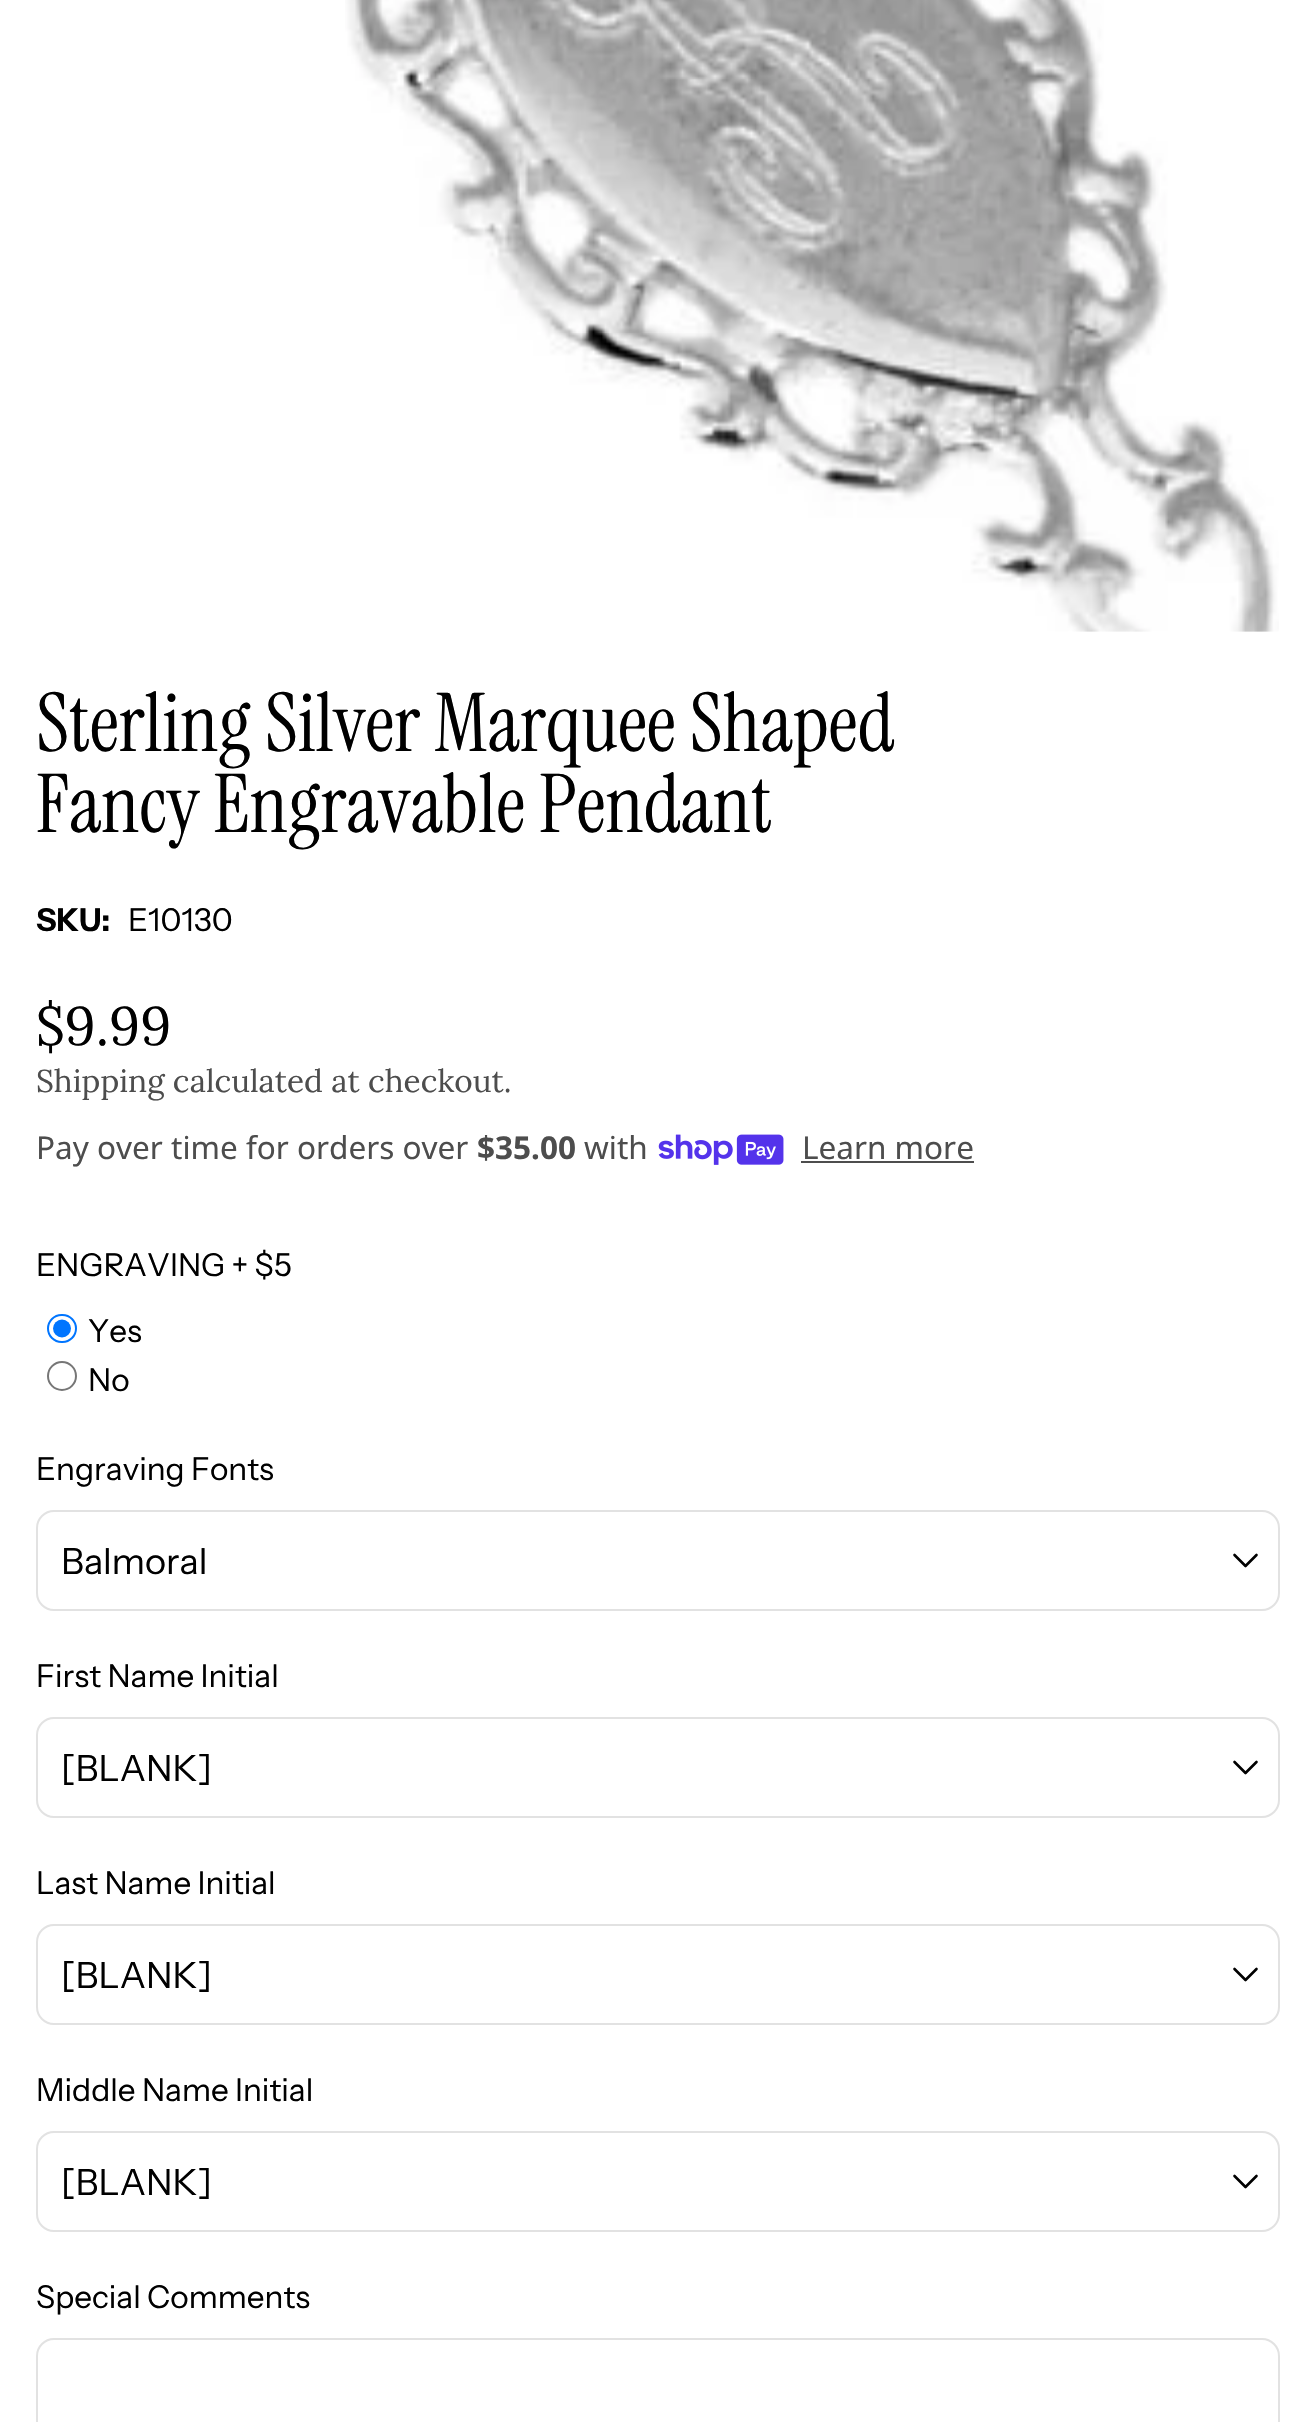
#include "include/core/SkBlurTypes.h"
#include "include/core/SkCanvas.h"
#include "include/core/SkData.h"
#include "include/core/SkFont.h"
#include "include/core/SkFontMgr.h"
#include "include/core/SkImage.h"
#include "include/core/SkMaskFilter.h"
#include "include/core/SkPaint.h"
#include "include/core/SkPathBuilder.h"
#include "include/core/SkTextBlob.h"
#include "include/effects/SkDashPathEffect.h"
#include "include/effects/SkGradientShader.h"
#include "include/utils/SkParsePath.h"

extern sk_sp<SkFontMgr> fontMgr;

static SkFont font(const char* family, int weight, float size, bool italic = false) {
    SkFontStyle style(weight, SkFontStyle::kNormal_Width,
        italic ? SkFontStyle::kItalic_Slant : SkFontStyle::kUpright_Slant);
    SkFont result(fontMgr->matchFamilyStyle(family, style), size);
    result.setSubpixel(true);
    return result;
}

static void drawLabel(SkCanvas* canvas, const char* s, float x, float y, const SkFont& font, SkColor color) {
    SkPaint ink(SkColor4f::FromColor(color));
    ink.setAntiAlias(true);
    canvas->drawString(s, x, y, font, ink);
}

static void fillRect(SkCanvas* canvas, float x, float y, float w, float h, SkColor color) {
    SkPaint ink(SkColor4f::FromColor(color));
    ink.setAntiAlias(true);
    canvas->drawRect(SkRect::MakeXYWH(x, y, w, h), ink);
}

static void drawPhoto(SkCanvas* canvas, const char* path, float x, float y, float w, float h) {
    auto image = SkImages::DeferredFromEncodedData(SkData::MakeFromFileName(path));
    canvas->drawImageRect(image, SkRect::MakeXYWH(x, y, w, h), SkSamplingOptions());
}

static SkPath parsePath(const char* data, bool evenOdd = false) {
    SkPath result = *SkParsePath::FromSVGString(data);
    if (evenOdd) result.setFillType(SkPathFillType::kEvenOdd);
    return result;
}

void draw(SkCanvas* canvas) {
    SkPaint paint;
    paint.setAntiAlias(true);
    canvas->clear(0xFFFFFFFF);
    drawPhoto(canvas, "assets/img1.png", 345, 0, 934, 632);
    SkFont font1 = font("Instrument Serif", 400, 81);
    drawLabel(canvas, "Sterling Silver Marquee Shaped", 36, 751, font1, 0xFF000000);
    drawLabel(canvas, "Fancy Engravable Pendant", 36, 832, font1, 0xFF000000);
    SkFont font2 = font("Instrument Sans", 700, 31.5f);
    drawLabel(canvas, "SKU:", 36, 931, font2, 0xFF000000);
    SkFont font3 = font("Instrument Sans", 400, 31.5f);
    drawLabel(canvas, "E10130", 128, 931, font3, 0xFF000000);
    SkFont font4 = font("Lora", 400, 54);
    drawLabel(canvas, "$9.99", 36, 1045, font4, 0xFF000000);
    SkFont font5 = font("Lora", 400, 31.5f);
    drawLabel(canvas, "Shipping calculated at checkout.", 36, 1092, font5, 0xFF4D4D4D);
    SkFont font6 = font("Noto Sans", 400, 31.5f);
    drawLabel(canvas, "Pay over time for orders over", 36, 1159, font6, 0xFF4D4D4D);
    SkFont font7 = font("Noto Sans", 700, 31.5f);
    drawLabel(canvas, "$35.00", 477, 1159, font7, 0xFF4D4D4D);
    drawLabel(canvas, "with", 584, 1159, font6, 0xFF4D4D4D);
    drawPhoto(canvas, "assets/img2.png", 658, 1134, 126, 31);
    drawLabel(canvas, "Learn more", 802, 1159, font6, 0xFF4D4D4D);
    fillRect(canvas, 801, 1161, 173, 2, 0xFF4D4D4D);
    drawLabel(canvas, "ENGRAVING + $5", 36, 1276, font3, 0xFF000000);
    paint.setStroke(true);
    paint.setStrokeWidth(2);
    paint.setColor(0xFF0075FF);
    canvas->drawRoundRect(SkRect::MakeXYWH(48, 1315, 28, 27), 13.5f, 13.5f, paint);
    paint.setStroke(false);
    canvas->drawCircle(62, 1328.5f, 9, paint);
    drawLabel(canvas, "Yes", 88, 1342, font3, 0xFF000000);
    paint.setStroke(true);
    paint.setColor(0xFF767676);
    canvas->drawCircle(62, 1376, 14, paint);
    drawLabel(canvas, "No", 88, 1391, font3, 0xFF000000);
    drawLabel(canvas, "Engraving Fonts", 36, 1480, font3, 0xFF000000);
    paint.setStrokeWidth(2.6f);
    paint.setStrokeCap(SkPaint::kRound_Cap);
    paint.setStrokeJoin(SkPaint::kRound_Join);
    paint.setColor(0xFF000000);
    canvas->drawPath(parsePath("M1256.5 1555L1245.5 1566L1234.5 1555"), paint);
    paint.setStrokeWidth(2);
    paint.setStrokeCap(SkPaint::kButt_Cap);
    paint.setStrokeJoin(SkPaint::kMiter_Join);
    paint.setColor(0xFFE2E2E2);
    canvas->drawRoundRect(SkRect::MakeXYWH(37, 1511, 1242, 99), 17, 17, paint);
    SkFont font8 = font("Instrument Sans", 400, 36);
    drawLabel(canvas, "Balmoral", 61, 1574, font8, 0xFF000000);
    drawLabel(canvas, "First Name Initial", 36, 1687, font3, 0xFF000000);
    paint.setStrokeWidth(2.6f);
    paint.setStrokeCap(SkPaint::kRound_Cap);
    paint.setStrokeJoin(SkPaint::kRound_Join);
    paint.setColor(0xFF000000);
    canvas->drawPath(parsePath("M1256.5 1762L1245.5 1773L1234.5 1762"), paint);
    paint.setStrokeWidth(2);
    paint.setStrokeCap(SkPaint::kButt_Cap);
    paint.setStrokeJoin(SkPaint::kMiter_Join);
    paint.setColor(0xFFE2E2E2);
    canvas->drawRoundRect(SkRect::MakeXYWH(37, 1718, 1242, 99), 17, 17, paint);
    drawLabel(canvas, "[BLANK]", 61, 1781, font8, 0xFF000000);
    drawLabel(canvas, "Last Name Initial", 36, 1894, font3, 0xFF000000);
    paint.setStrokeWidth(2.6f);
    paint.setStrokeCap(SkPaint::kRound_Cap);
    paint.setStrokeJoin(SkPaint::kRound_Join);
    paint.setColor(0xFF000000);
    canvas->drawPath(parsePath("M1256.5 1969L1245.5 1980L1234.5 1969"), paint);
    paint.setStrokeWidth(2);
    paint.setStrokeCap(SkPaint::kButt_Cap);
    paint.setStrokeJoin(SkPaint::kMiter_Join);
    paint.setColor(0xFFE2E2E2);
    canvas->drawRoundRect(SkRect::MakeXYWH(37, 1925, 1242, 99), 17, 17, paint);
    drawLabel(canvas, "[BLANK]", 61, 1988, font8, 0xFF000000);
    drawLabel(canvas, "Middle Name Initial", 36, 2101, font3, 0xFF000000);
    paint.setStrokeWidth(2.6f);
    paint.setStrokeCap(SkPaint::kRound_Cap);
    paint.setStrokeJoin(SkPaint::kRound_Join);
    paint.setColor(0xFF000000);
    canvas->drawPath(parsePath("M1256.5 2176L1245.5 2187L1234.5 2176"), paint);
    paint.setStrokeWidth(2);
    paint.setStrokeCap(SkPaint::kButt_Cap);
    paint.setStrokeJoin(SkPaint::kMiter_Join);
    paint.setColor(0xFFE2E2E2);
    canvas->drawRoundRect(SkRect::MakeXYWH(37, 2132, 1242, 99), 17, 17, paint);
    drawLabel(canvas, "[BLANK]", 61, 2195, font8, 0xFF000000);
    drawLabel(canvas, "Special Comments", 36, 2308, font3, 0xFF000000);
    canvas->drawRoundRect(SkRect::MakeXYWH(37, 2339, 1242, 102), 17, 17, paint);
}
